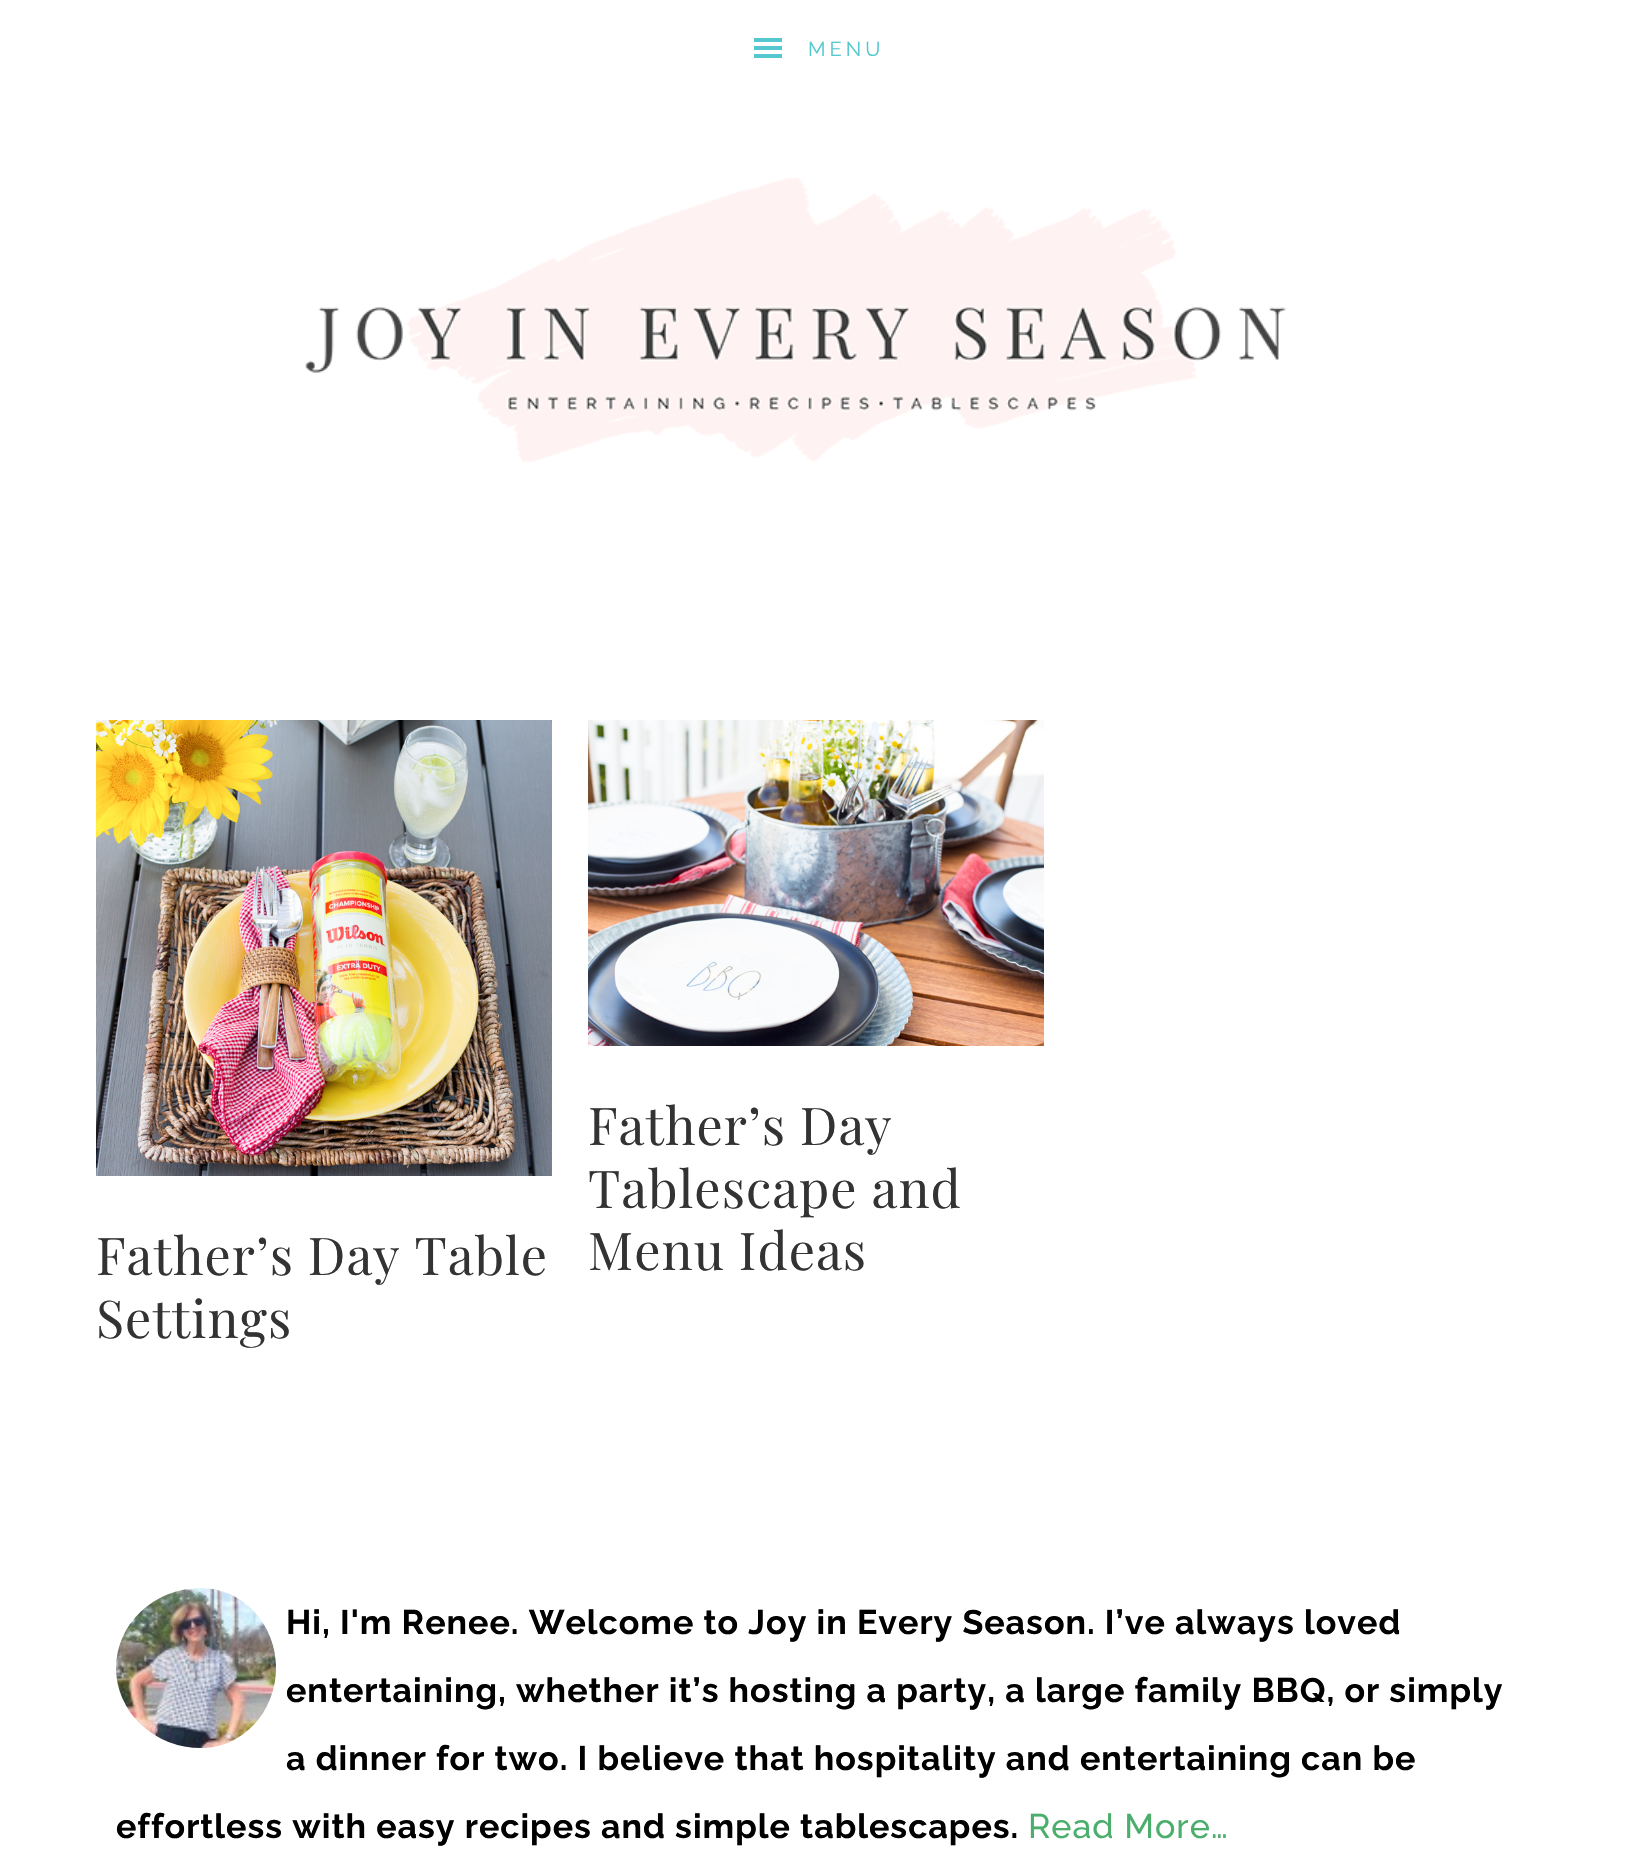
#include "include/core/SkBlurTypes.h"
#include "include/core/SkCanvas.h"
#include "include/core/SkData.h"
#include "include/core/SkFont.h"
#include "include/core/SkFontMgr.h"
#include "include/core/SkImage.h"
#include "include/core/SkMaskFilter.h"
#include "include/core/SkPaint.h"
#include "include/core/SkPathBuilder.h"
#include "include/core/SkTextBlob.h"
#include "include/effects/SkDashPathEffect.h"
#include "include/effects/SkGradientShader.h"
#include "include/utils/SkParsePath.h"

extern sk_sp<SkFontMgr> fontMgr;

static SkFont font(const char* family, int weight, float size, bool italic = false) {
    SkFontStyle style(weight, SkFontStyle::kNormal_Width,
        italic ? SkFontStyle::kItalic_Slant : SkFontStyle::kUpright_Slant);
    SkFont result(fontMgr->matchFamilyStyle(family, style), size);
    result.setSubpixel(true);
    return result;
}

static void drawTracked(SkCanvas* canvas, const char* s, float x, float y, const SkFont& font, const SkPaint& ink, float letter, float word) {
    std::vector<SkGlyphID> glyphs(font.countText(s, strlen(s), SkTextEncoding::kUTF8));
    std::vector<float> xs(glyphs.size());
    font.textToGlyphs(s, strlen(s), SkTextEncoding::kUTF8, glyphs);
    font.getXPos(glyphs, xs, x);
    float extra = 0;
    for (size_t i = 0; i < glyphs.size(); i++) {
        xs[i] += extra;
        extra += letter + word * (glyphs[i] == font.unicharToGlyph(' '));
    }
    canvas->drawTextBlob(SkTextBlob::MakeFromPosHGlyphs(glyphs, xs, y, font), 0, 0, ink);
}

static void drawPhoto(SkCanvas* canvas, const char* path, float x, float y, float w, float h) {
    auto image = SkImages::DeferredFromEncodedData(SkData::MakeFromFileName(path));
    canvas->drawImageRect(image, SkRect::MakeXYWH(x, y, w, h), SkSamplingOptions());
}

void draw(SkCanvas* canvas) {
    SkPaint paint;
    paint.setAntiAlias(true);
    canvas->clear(0xFFFFFFFF);
    drawPhoto(canvas, "assets/img1.png", 754, 38, 28, 20);
    SkFont font1 = font("Raleway", 400, 20);
    paint.setColor(0xFF55C7CF);
    drawTracked(canvas, "MENU", 808, 56, font1, paint, 4, 0);
    drawPhoto(canvas, "assets/img2.png", 305, 177, 981, 285);
    drawPhoto(canvas, "assets/img3.png", 588, 720, 456, 326);
    SkFont font2 = font("Playfair Display", 400, 52);
    paint.setColor(0xFF333333);
    drawTracked(canvas, "Father’s Day", 588, 1145, font2, paint, 1, 0);
    drawTracked(canvas, "Tablescape and", 588, 1208, font2, paint, 1, 0);
    drawTracked(canvas, "Menu Ideas", 588, 1270, font2, paint, 1, 0);
    drawPhoto(canvas, "assets/img4.png", 96, 720, 456, 456);
    drawTracked(canvas, "Father’s Day Table", 96, 1275, font2, paint, 1, 0);
    drawTracked(canvas, "Settings", 96, 1338, font2, paint, 1, 0);
    drawPhoto(canvas, "assets/img5.png", 116, 1588, 160, 160);
    SkFont font3 = font("Raleway", 700, 34);
    paint.setColor(0xFF000000);
    drawTracked(canvas, "Hi, I'm Renee. Welcome to Joy in Every Season. I’ve always loved", 286, 1634, font3, paint, 1, 0);
    drawTracked(canvas, "entertaining, whether it’s hosting a party, a large family BBQ, or simply", 286, 1702, font3, paint, 1, 0);
    drawTracked(canvas, "a dinner for two. I believe that hospitality and entertaining can be", 286, 1770, font3, paint, 1, 0);
    drawTracked(canvas, "effortless with easy recipes and simple tablescapes.", 116, 1838, font3, paint, 1, 0);
    SkFont font4 = font("Raleway", 500, 34);
    paint.setColor(0xFF4BAE6C);
    drawTracked(canvas, "Read More…", 1028, 1838, font4, paint, 1, 0);
}
